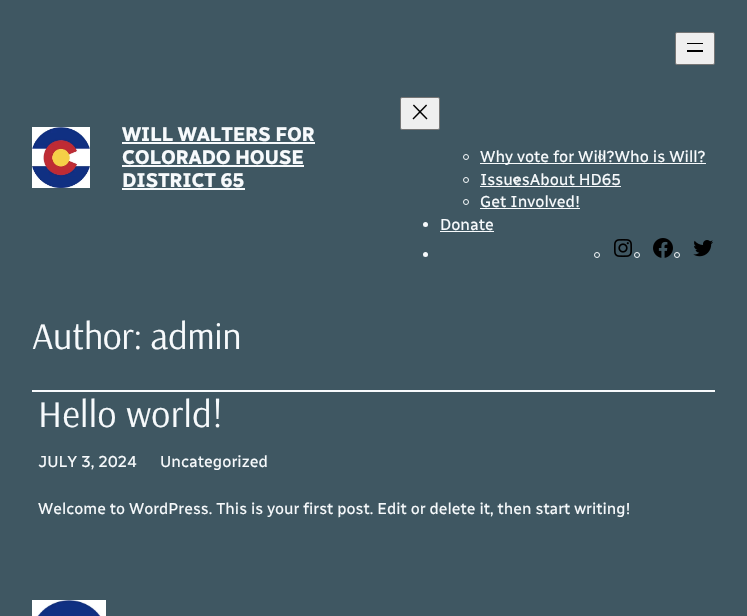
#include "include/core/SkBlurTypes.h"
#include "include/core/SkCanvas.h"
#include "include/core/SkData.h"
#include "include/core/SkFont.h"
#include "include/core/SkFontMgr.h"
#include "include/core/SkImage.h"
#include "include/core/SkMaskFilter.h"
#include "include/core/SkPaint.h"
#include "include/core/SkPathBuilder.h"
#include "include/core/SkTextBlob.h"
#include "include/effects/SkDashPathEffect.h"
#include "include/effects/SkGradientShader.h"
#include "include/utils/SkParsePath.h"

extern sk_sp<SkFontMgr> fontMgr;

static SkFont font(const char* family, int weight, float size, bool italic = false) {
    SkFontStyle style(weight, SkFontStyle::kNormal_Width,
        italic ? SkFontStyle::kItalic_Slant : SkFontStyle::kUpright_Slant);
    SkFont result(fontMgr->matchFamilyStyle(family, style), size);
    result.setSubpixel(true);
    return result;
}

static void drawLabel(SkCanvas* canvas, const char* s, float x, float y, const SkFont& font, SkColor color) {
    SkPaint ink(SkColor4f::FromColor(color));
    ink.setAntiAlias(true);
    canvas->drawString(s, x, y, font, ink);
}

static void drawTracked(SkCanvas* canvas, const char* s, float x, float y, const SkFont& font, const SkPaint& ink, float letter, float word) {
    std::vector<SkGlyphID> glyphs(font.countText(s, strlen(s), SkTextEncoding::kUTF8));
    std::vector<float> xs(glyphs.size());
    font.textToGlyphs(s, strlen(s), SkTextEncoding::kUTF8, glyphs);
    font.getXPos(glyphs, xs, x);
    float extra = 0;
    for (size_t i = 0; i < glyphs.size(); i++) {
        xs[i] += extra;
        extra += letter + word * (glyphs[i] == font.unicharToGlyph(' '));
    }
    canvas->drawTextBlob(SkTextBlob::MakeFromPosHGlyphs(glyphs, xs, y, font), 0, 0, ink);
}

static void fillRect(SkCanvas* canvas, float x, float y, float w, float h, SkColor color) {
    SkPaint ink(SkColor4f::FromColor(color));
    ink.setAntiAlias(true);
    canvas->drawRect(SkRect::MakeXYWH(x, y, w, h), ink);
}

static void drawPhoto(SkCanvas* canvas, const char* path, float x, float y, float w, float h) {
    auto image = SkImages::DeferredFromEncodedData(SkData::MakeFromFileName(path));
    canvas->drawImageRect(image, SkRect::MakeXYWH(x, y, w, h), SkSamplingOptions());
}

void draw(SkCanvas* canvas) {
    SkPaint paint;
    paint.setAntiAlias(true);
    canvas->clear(0xFF3F5762);
    drawPhoto(canvas, "assets/img1.png", 32, 127, 58, 61);
    SkFont font1 = font("Radio Canada", 700, 20);
    paint.setColor(0xFFF7FAFC);
    drawTracked(canvas, "WILL WALTERS FOR", 122, 141, font1, paint, -0.25f, 0);
    fillRect(canvas, 122, 142, 193, 2, 0xFFF7FAFC);
    drawTracked(canvas, "COLORADO HOUSE", 122, 164, font1, paint, -0.25f, 0);
    fillRect(canvas, 122, 165, 182, 2, 0xFFF7FAFC);
    drawTracked(canvas, "DISTRICT 65", 122, 187, font1, paint, -0.25f, 0);
    fillRect(canvas, 122, 188, 123, 2, 0xFFF7FAFC);
    paint.setColor(0xFFEFEFEF);
    canvas->drawRoundRect(SkRect::MakeXYWH(675.5f, 32.5f, 39, 32), 1.5f, 1.5f, paint);
    paint.setStroke(true);
    paint.setStrokeWidth(1);
    paint.setColor(0xFF767676);
    canvas->drawRoundRect(SkRect::MakeXYWH(675.5f, 32.5f, 39, 32), 1.5f, 1.5f, paint);
    fillRect(canvas, 687, 43, 16, 1, 0xFF000000);
    fillRect(canvas, 687, 50, 16, 2, 0xFF000000);
    paint.setStroke(false);
    paint.setColor(0xFFEFEFEF);
    canvas->drawRoundRect(SkRect::MakeXYWH(400.5f, 97.5f, 39, 32), 1.5f, 1.5f, paint);
    paint.setStroke(true);
    paint.setColor(0xFF767676);
    canvas->drawRoundRect(SkRect::MakeXYWH(400.5f, 97.5f, 39, 32), 1.5f, 1.5f, paint);
    drawPhoto(canvas, "assets/img2.png", 412, 104, 16, 16);
    paint.setColor(0xFFF7FAFC);
    canvas->drawCircle(466, 157, 2.5f, paint);
    fillRect(canvas, 480, 163, 226, 1, 0xFFF7FAFC);
    SkFont font2 = font("Radio Canada", 400, 16);
    drawLabel(canvas, "Why vote for Will?Who is Will?", 480, 162, font2, 0xFFF7FAFC);
    canvas->drawCircle(601, 157, 2.5f, paint);
    canvas->drawCircle(466, 180, 2.5f, paint);
    drawLabel(canvas, "IssuesAbout HD65", 480, 185, font2, 0xFFF7FAFC);
    fillRect(canvas, 480, 186, 141, 1, 0xFFF7FAFC);
    canvas->drawCircle(516, 180, 2.5f, paint);
    canvas->drawCircle(466, 202, 2.5f, paint);
    drawLabel(canvas, "Get Involved!", 480, 207, font2, 0xFFF7FAFC);
    fillRect(canvas, 480, 208, 100, 1, 0xFFF7FAFC);
    paint.setStroke(false);
    canvas->drawCircle(425.5f, 224.5f, 2.5f, paint);
    drawLabel(canvas, "Donate", 440, 230, font2, 0xFFF7FAFC);
    fillRect(canvas, 440, 231, 54, 1, 0xFFF7FAFC);
    canvas->drawCircle(425.5f, 254.5f, 2.5f, paint);
    paint.setStroke(true);
    canvas->drawCircle(597, 255, 2.5f, paint);
    drawPhoto(canvas, "assets/img3.png", 614, 239, 18, 18);
    canvas->drawCircle(637, 255, 2.5f, paint);
    drawPhoto(canvas, "assets/img4.png", 653, 238, 20, 20);
    canvas->drawCircle(677, 255, 2.5f, paint);
    drawPhoto(canvas, "assets/img5.png", 693, 240, 20, 17);
    SkFont font3 = font("Arsenal", 400, 37.75f);
    paint.setStroke(false);
    drawTracked(canvas, "Author: admin", 32, 349, font3, paint, -0.4f, 0);
    fillRect(canvas, 32, 390, 683, 2, 0xFFF7FAFC);
    drawTracked(canvas, "Hello world!", 38, 427, font3, paint, 0.4f, 0);
    drawLabel(canvas, "JULY 3, 2024", 38, 467, font2, 0xFFF7FAFC);
    drawLabel(canvas, "Uncategorized", 160, 467, font2, 0xFFF7FAFC);
    SkFont font4 = font("Radio Canada", 400, 15.8f);
    drawLabel(canvas, "Welcome to WordPress. This is your first post. Edit or delete it, then start writing!", 38, 514, font4, 0xFFF7FAFC);
    drawPhoto(canvas, "assets/img6.png", 32, 600, 74, 16);
}
